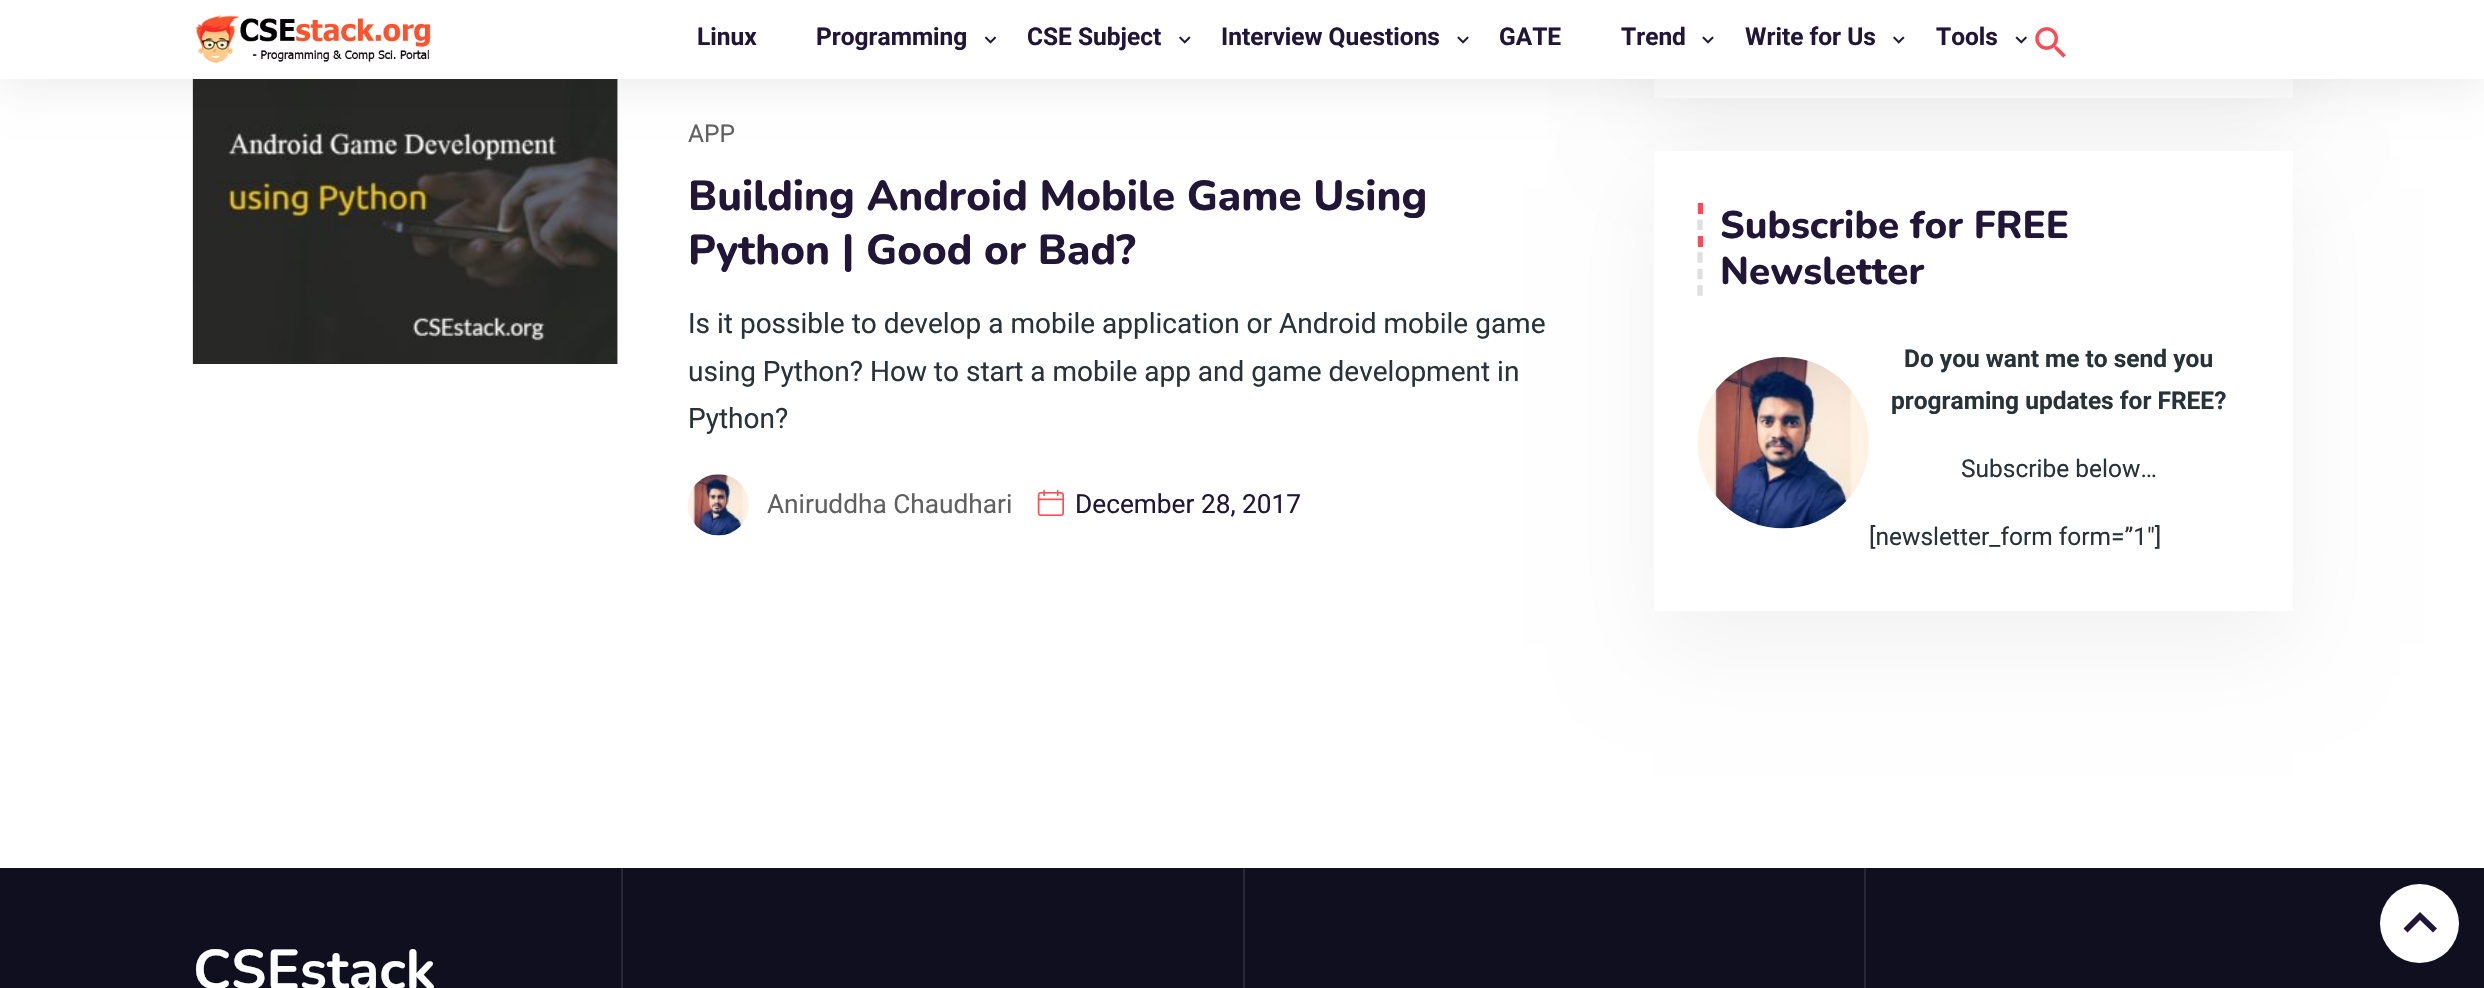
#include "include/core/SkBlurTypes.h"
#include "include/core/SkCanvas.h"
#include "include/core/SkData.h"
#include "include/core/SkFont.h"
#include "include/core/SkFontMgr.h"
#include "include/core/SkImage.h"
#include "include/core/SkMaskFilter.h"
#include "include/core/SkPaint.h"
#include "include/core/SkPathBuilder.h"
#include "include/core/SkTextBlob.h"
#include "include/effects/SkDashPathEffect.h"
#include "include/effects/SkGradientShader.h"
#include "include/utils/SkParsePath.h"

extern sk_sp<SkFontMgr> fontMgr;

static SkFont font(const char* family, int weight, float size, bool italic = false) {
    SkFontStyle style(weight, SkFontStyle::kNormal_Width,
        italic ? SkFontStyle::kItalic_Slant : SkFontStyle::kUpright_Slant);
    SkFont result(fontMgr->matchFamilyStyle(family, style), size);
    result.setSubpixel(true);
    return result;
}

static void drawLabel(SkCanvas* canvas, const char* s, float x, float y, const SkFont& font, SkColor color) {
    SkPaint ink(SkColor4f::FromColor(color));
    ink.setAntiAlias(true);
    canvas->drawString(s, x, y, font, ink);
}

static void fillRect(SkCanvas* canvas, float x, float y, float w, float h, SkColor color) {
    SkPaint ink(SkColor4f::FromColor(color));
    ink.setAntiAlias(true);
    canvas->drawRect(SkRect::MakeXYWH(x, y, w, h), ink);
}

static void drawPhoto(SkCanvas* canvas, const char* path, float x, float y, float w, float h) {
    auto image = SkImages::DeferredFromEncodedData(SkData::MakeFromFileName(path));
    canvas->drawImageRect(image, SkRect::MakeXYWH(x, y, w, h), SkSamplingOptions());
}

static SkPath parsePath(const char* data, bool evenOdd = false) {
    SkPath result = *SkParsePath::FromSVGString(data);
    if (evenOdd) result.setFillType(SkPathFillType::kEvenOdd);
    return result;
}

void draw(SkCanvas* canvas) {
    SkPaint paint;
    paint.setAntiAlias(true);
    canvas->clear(0xFFFFFFFF);
    drawPhoto(canvas, "assets/img7.png", 192, 79, 426, 285);
    paint.setColor(0x0D000000);
    paint.setMaskFilter(SkMaskFilter::MakeBlur(kNormal_SkBlurStyle, 44));
    canvas->drawRect(SkRect::MakeXYWH(1654, -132, 639, 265), paint);
    paint.setMaskFilter(nullptr);
    fillRect(canvas, 1654, 79, 639, 19, 0xFFFFFFFF);
    paint.setMaskFilter(SkMaskFilter::MakeBlur(kNormal_SkBlurStyle, 44));
    canvas->drawRect(SkRect::MakeXYWH(1654, 186, 639, 460), paint);
    paint.setMaskFilter(nullptr);
    fillRect(canvas, 1654, 151, 639, 460, 0xFFFFFFFF);
    paint.setColor(0x17000000);
    paint.setMaskFilter(SkMaskFilter::MakeBlur(kNormal_SkBlurStyle, 24.5f));
    canvas->drawRect(SkRect::MakeXYWH(0, 4, 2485, 78), paint);
    paint.setMaskFilter(nullptr);
    fillRect(canvas, 0, 0, 2484, 79, 0xFFFFFFFF);
    drawPhoto(canvas, "assets/img1.png", 195, 15, 236, 49);
    SkFont font1 = font("Roboto", 700, 24.5f);
    drawLabel(canvas, "Linux", 697, 45, font1, 0xFF221638);
    drawLabel(canvas, "Programming", 816, 45, font1, 0xFF221638);
    drawPhoto(canvas, "assets/img2.png", 984, 36, 13, 8);
    drawLabel(canvas, "CSE Subject", 1027, 45, font1, 0xFF221638);
    drawPhoto(canvas, "assets/img3.png", 1179, 36, 12, 8);
    drawLabel(canvas, "Interview Questions", 1221, 45, font1, 0xFF221638);
    drawPhoto(canvas, "assets/img4.png", 1457, 36, 12, 8);
    drawLabel(canvas, "GATE", 1499, 45, font1, 0xFF221638);
    drawLabel(canvas, "Trend", 1621, 45, font1, 0xFF221638);
    drawPhoto(canvas, "assets/img4.png", 1702, 36, 12, 8);
    drawLabel(canvas, "Write for Us", 1745, 45, font1, 0xFF221638);
    drawPhoto(canvas, "assets/img3.png", 1893, 36, 12, 8);
    drawLabel(canvas, "Tools", 1936, 45, font1, 0xFF221638);
    drawPhoto(canvas, "assets/img5.png", 2015, 36, 12, 8);
    drawPhoto(canvas, "assets/img6.png", 2035, 27, 31, 31);
    SkFont font2 = font("Roboto", 400, 24.5f);
    drawLabel(canvas, "APP", 688, 142, font2, 0xFF606060);
    SkFont font3 = font("Nunito", 800, 42);
    drawLabel(canvas, "Building Android Mobile Game Using", 688, 210, font3, 0xFF221638);
    drawLabel(canvas, "Python | Good or Bad?", 688, 264, font3, 0xFF221638);
    SkFont font4 = font("Roboto", 400, 28);
    drawLabel(canvas, "Is it possible to develop a mobile application or Android mobile game", 688, 333, font4, 0xFF273239);
    drawLabel(canvas, "using Python? How to start a mobile app and game development in", 688, 381, font4, 0xFF273239);
    drawLabel(canvas, "Python?", 688, 428, font4, 0xFF273239);
    drawPhoto(canvas, "assets/img8.png", 688, 474, 61, 62);
    SkFont font5 = font("Roboto", 400, 26.25f);
    drawLabel(canvas, "Aniruddha Chaudhari", 767, 513, font5, 0xFF606060);
    drawPhoto(canvas, "assets/img9.png", 1037, 489, 27, 27);
    drawLabel(canvas, "December 28, 2017", 1075, 513, font5, 0xFF221638);
    paint.setStroke(true);
    paint.setStrokeWidth(5.2f);
    paint.setColor(0xFFDFDFDF);
    paint.setPathEffect(SkDashPathEffect::Make({{10.5f, 5.95f}}, 0));
    canvas->drawPath(parsePath("M1700 203V296"), paint);
    paint.setPathEffect(nullptr);
    fillRect(canvas, 1698, 203, 5, 11, 0xFFFE4A55);
    SkFont font6 = font("Nunito", 800, 38.5f);
    drawLabel(canvas, "Subscribe for FREE", 1720, 238, font6, 0xFF221638);
    fillRect(canvas, 1698, 236, 5, 11, 0xFFFE4A55);
    drawLabel(canvas, "Newsletter", 1720, 284, font6, 0xFF221638);
    drawPhoto(canvas, "assets/img10.png", 1697, 357, 172, 172);
    drawLabel(canvas, "Do you want me to send you", 1904, 367, font1, 0xFF273239);
    drawLabel(canvas, "programing updates for FREE?", 1891, 409, font1, 0xFF273239);
    drawLabel(canvas, "Subscribe below…", 1961, 477, font2, 0xFF273239);
    drawLabel(canvas, "[newsletter_form form=”1″]", 1869, 545, font2, 0xFF273239);
    fillRect(canvas, 0, 868, 2484, 120, 0xFF100F1F);
    paint.setStroke(false);
    paint.setColor(0xFFFFFFFF);
    canvas->drawCircle(2419.5f, 923.5f, 39.5f, paint);
    paint.setColor(0xFF221638);
    canvas->drawPath(parsePath("M2403.5 928.5L2407.5 932.5L2420 920L2433 932.5L2437 928.5L2420 912Z"), paint);
    SkFont font7 = font("Nunito", 700, 56);
    drawLabel(canvas, "CSEstack", 193, 989, font7, 0xFFFFFFFF);
    fillRect(canvas, 621, 868, 2, 120, 0xFF282735);
    fillRect(canvas, 1243, 868, 2, 120, 0xFF282735);
    fillRect(canvas, 1864, 868, 2, 120, 0xFF282735);
}
